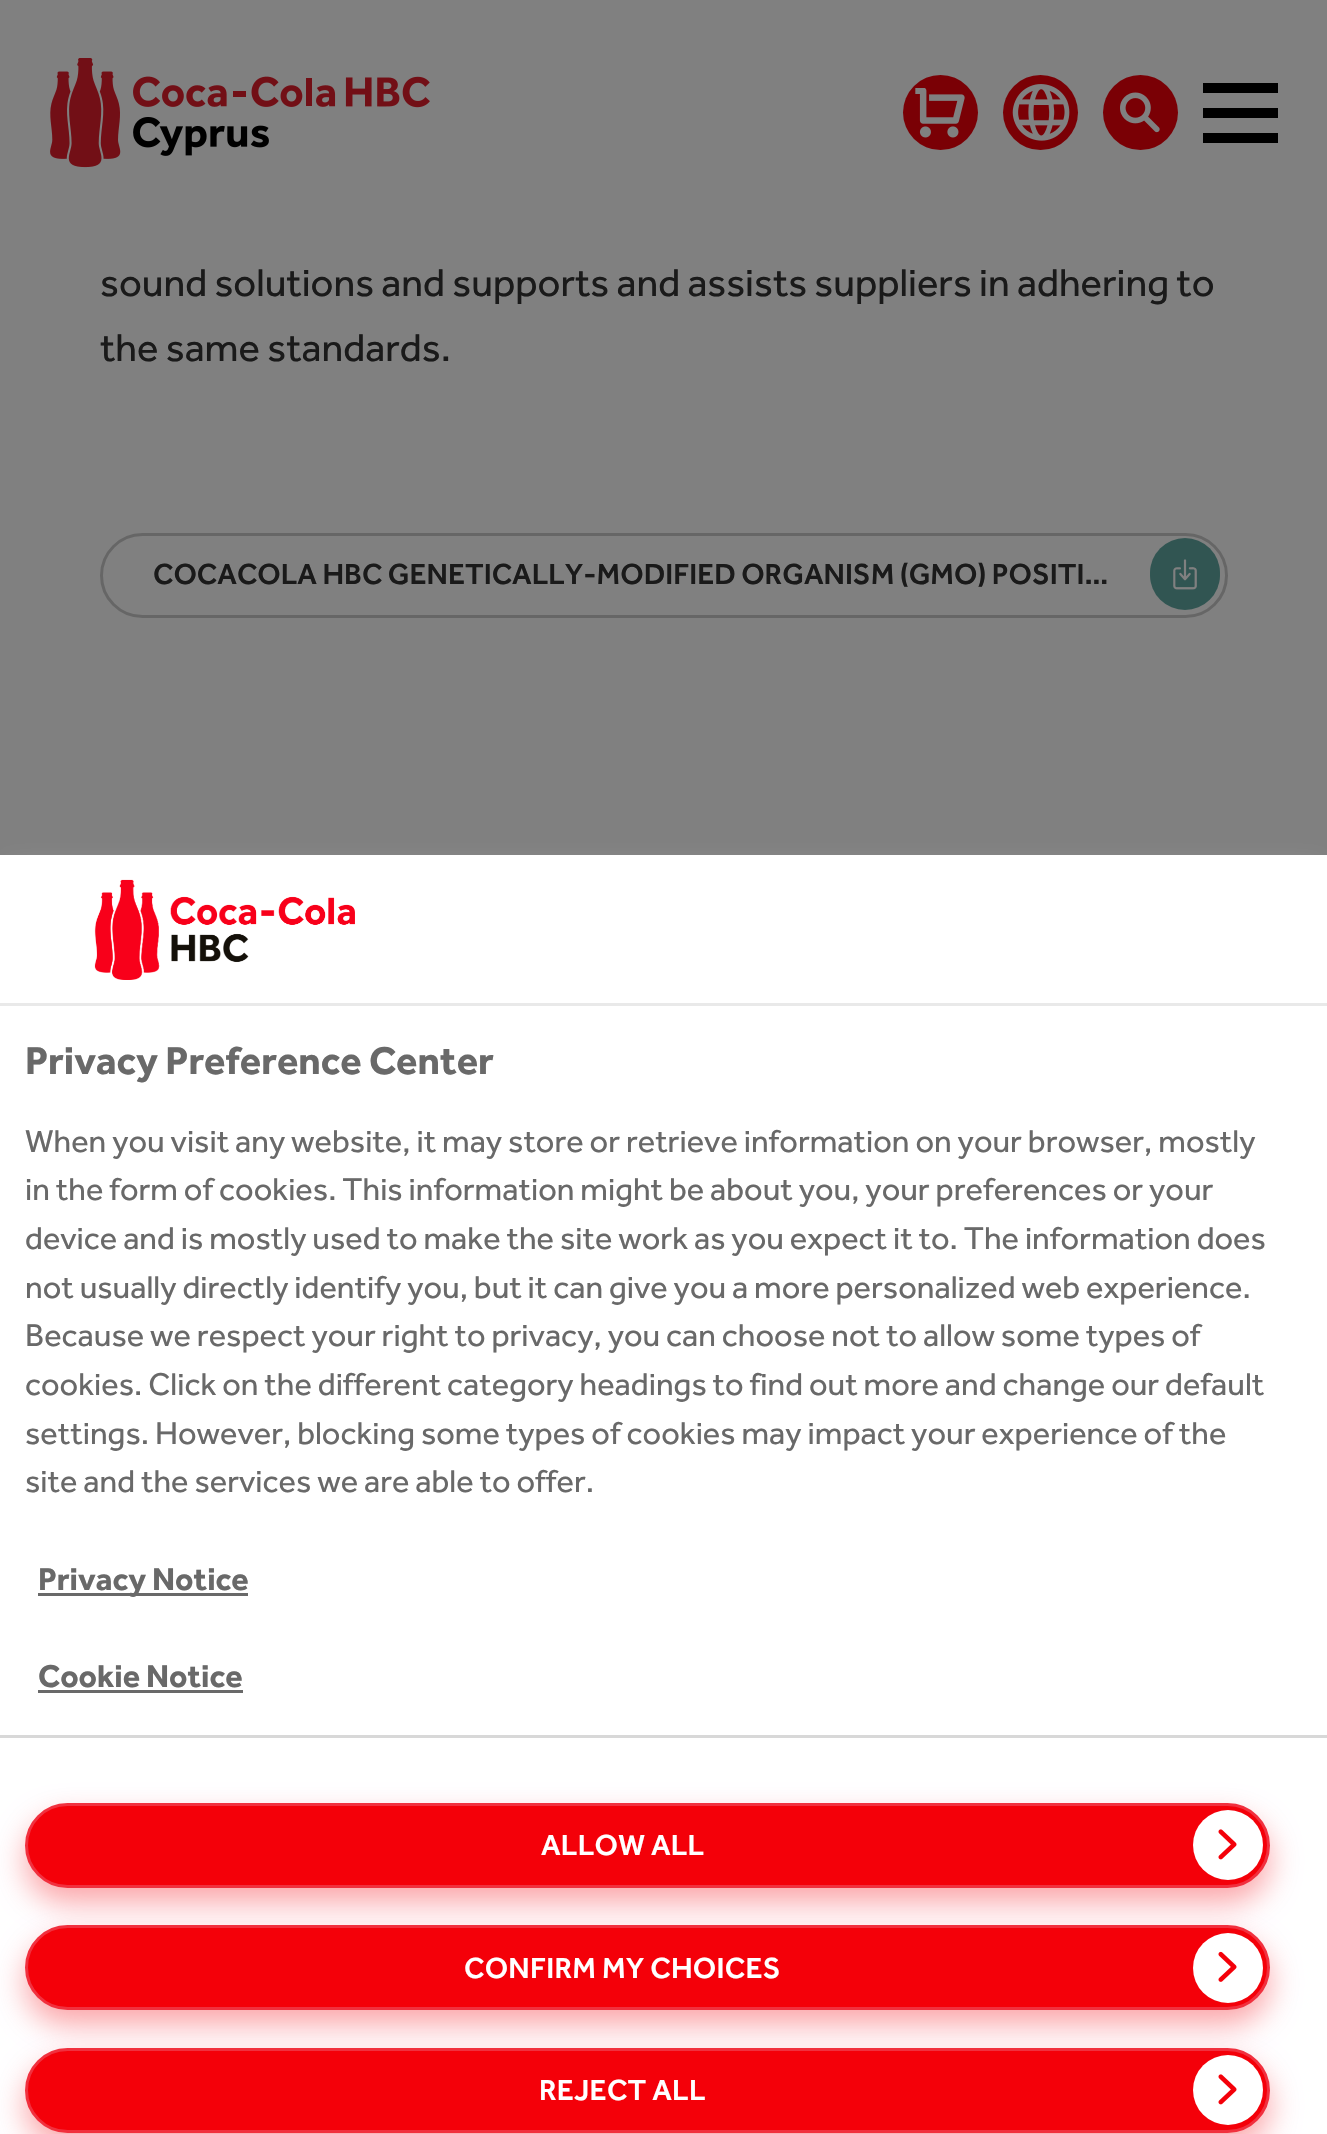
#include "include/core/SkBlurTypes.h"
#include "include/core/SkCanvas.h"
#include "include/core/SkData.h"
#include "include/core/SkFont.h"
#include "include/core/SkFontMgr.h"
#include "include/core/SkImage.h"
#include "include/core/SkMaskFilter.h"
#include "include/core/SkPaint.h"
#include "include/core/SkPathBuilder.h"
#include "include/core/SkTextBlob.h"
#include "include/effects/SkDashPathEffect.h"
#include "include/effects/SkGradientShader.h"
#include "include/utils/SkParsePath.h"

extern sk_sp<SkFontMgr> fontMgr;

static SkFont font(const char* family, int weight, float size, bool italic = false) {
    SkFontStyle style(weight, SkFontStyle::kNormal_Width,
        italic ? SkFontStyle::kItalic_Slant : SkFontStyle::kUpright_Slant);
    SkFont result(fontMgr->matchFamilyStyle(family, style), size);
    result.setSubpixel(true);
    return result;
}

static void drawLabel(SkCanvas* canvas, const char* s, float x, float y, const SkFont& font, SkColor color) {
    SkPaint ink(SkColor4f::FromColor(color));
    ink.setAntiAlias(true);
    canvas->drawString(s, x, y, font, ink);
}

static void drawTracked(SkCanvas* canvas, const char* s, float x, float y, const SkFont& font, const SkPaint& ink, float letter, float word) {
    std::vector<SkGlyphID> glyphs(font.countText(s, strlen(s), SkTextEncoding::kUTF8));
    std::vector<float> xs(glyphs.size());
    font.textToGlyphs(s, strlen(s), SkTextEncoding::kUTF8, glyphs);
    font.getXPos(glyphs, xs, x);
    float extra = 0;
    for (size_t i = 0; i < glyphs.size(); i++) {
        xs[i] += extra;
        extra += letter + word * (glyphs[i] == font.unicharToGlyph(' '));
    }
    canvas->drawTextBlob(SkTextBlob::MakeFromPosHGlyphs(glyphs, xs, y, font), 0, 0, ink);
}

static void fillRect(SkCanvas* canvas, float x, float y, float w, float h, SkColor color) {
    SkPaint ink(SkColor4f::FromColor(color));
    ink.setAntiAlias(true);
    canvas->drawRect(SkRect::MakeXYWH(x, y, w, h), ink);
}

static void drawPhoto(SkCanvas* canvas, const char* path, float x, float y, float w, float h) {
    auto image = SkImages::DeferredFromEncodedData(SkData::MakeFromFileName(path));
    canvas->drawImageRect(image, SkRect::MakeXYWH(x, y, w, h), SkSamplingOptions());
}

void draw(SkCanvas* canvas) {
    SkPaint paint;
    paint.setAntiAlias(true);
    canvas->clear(0xFF808080);
    drawPhoto(canvas, "assets/img1.png", 50, 58, 380, 110);
    paint.setColor(0xFF7A0005);
    canvas->drawCircle(940.5f, 112.5f, 37.5f, paint);
    drawPhoto(canvas, "assets/img2.png", 915, 88, 50, 50);
    canvas->drawCircle(1040.5f, 112.5f, 37.5f, paint);
    drawPhoto(canvas, "assets/img3.png", 1012, 84, 58, 57);
    canvas->drawCircle(1140.5f, 112.5f, 37.5f, paint);
    drawPhoto(canvas, "assets/img4.png", 1120, 92, 40, 41);
    fillRect(canvas, 1203, 108, 75, 10, 0xFF000000);
    fillRect(canvas, 1203, 83, 75, 10, 0xFF000000);
    fillRect(canvas, 1203, 133, 75, 10, 0xFF000000);
    SkFont font1 = font("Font", 400, 40);
    drawLabel(canvas, "sound solutions and supports and assists suppliers in adhering to", 100, 296, font1, 0xFF1A1A1A);
    drawLabel(canvas, "the same standards.", 100, 361, font1, 0xFF1A1A1A);
    paint.setStroke(true);
    paint.setStrokeWidth(3);
    paint.setColor(0xFF666666);
    canvas->drawRoundRect(SkRect::MakeXYWH(101.5f, 534.5f, 1125, 82), 41, 41, paint);
    paint.setStroke(false);
    paint.setColor(0xFF315552);
    canvas->drawCircle(1185, 573, 35, paint);
    SkFont font2 = font("Font", 500, 30);
    drawLabel(canvas, "COCA‑COLA HBC GENETICALLY-MODIFIED ORGANISM (GMO) POSITI…", 153, 584, font2, 0xFF1A1A1A);
    canvas->drawCircle(1185, 575, 35, paint);
    drawPhoto(canvas, "assets/img5.png", 1173, 559, 24, 31);
    paint.setColor(0xFF999999);
    paint.setMaskFilter(SkMaskFilter::MakeBlur(kNormal_SkBlurStyle, 12.5f));
    canvas->drawRect(SkRect::MakeXYWH(8, 868, 1312, 1265), paint);
    paint.setMaskFilter(nullptr);
    fillRect(canvas, 0, 855, 1327, 1279, 0xFFFFFFFF);
    fillRect(canvas, 0, 1003, 1327, 3, 0xFFE9E9E9);
    drawPhoto(canvas, "assets/img6.png", 94, 879, 261, 101);
    SkFont font3 = font("Font", 700, 40);
    drawLabel(canvas, "Privacy Preference Center", 25, 1074, font3, 0xFF696969);
    SkFont font4 = font("Font", 400, 32.5f);
    drawLabel(canvas, "When you visit any website, it may store or retrieve information on your browser, mostly", 25, 1152, font4, 0xFF696969);
    drawLabel(canvas, "in the form of cookies. This information might be about you, your preferences or your", 25, 1200, font4, 0xFF696969);
    drawLabel(canvas, "device and is mostly used to make the site work as you expect it to. The information does", 25, 1249, font4, 0xFF696969);
    drawLabel(canvas, "not usually directly identify you, but it can give you a more personalized web experience.", 25, 1298, font4, 0xFF696969);
    drawLabel(canvas, "Because we respect your right to privacy, you can choose not to allow some types of", 25, 1346, font4, 0xFF696969);
    drawLabel(canvas, "cookies. Click on the different category headings to find out more and change our default", 25, 1395, font4, 0xFF696969);
    drawLabel(canvas, "settings. However, blocking some types of cookies may impact your experience of the", 25, 1444, font4, 0xFF696969);
    drawLabel(canvas, "site and the services we are able to offer.", 25, 1492, font4, 0xFF696969);
    fillRect(canvas, 38, 1593, 210, 3, 0xFF696969);
    SkFont font5 = font("Font", 700, 32.5f);
    drawLabel(canvas, "Privacy Notice", 38, 1590, font5, 0xFF696969);
    drawLabel(canvas, "Cookie Notice", 38, 1687, font5, 0xFF696969);
    fillRect(canvas, 38, 1690, 205, 3, 0xFF696969);
    fillRect(canvas, 0, 1735, 1327, 3, 0xFFD8D8D8);
    paint.setColor(0x59F40009);
    paint.setMaskFilter(SkMaskFilter::MakeBlur(kNormal_SkBlurStyle, 15));
    canvas->drawRoundRect(SkRect::MakeXYWH(25, 1818, 1245, 85), 42.5f, 42.5f, paint);
    paint.setMaskFilter(nullptr);
    paint.setColor(0xFFF40009);
    canvas->drawRoundRect(SkRect::MakeXYWH(26.5f, 1804.5f, 1242, 82), 41, 41, paint);
    paint.setStroke(true);
    paint.setColor(0xFFF1303E);
    canvas->drawRoundRect(SkRect::MakeXYWH(26.5f, 1804.5f, 1242, 82), 41, 41, paint);
    paint.setStroke(false);
    paint.setColor(0xFFFFFFFF);
    canvas->drawCircle(1228, 1845, 35, paint);
    drawTracked(canvas, "ALLOW ALL", 541, 1855, font2, paint, 0.25f, 0);
    drawPhoto(canvas, "assets/img7.png", 1218, 1829, 19, 31);
    paint.setColor(0x59F40009);
    paint.setMaskFilter(SkMaskFilter::MakeBlur(kNormal_SkBlurStyle, 15));
    canvas->drawRoundRect(SkRect::MakeXYWH(25, 1940, 1245, 85), 42.5f, 42.5f, paint);
    paint.setMaskFilter(nullptr);
    paint.setColor(0xFFF40009);
    canvas->drawRoundRect(SkRect::MakeXYWH(26.5f, 1926.5f, 1242, 82), 41, 41, paint);
    paint.setStroke(true);
    paint.setColor(0xFFF1303E);
    canvas->drawRoundRect(SkRect::MakeXYWH(26.5f, 1926.5f, 1242, 82), 41, 41, paint);
    paint.setStroke(false);
    paint.setColor(0xFFFFFFFF);
    canvas->drawCircle(1228, 1968, 35, paint);
    drawTracked(canvas, "CONFIRM MY CHOICES", 464, 1978, font2, paint, 0.25f, 0);
    drawPhoto(canvas, "assets/img8.png", 1218, 1951, 19, 31);
    paint.setColor(0x59F40009);
    paint.setMaskFilter(SkMaskFilter::MakeBlur(kNormal_SkBlurStyle, 15));
    canvas->drawRoundRect(SkRect::MakeXYWH(25, 2063, 1245, 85), 42.5f, 42.5f, paint);
    paint.setMaskFilter(nullptr);
    paint.setColor(0xFFF40009);
    canvas->drawRoundRect(SkRect::MakeXYWH(26.5f, 2049.5f, 1242, 82), 41, 41, paint);
    paint.setStroke(true);
    paint.setColor(0xFFF1303E);
    canvas->drawRoundRect(SkRect::MakeXYWH(26.5f, 2049.5f, 1242, 82), 41, 41, paint);
    paint.setStroke(false);
    paint.setColor(0xFFFFFFFF);
    canvas->drawCircle(1228, 2090, 35, paint);
    drawTracked(canvas, "REJECT ALL", 539, 2100, font2, paint, 0.25f, 0);
    drawPhoto(canvas, "assets/img7.png", 1218, 2074, 19, 31);
}
